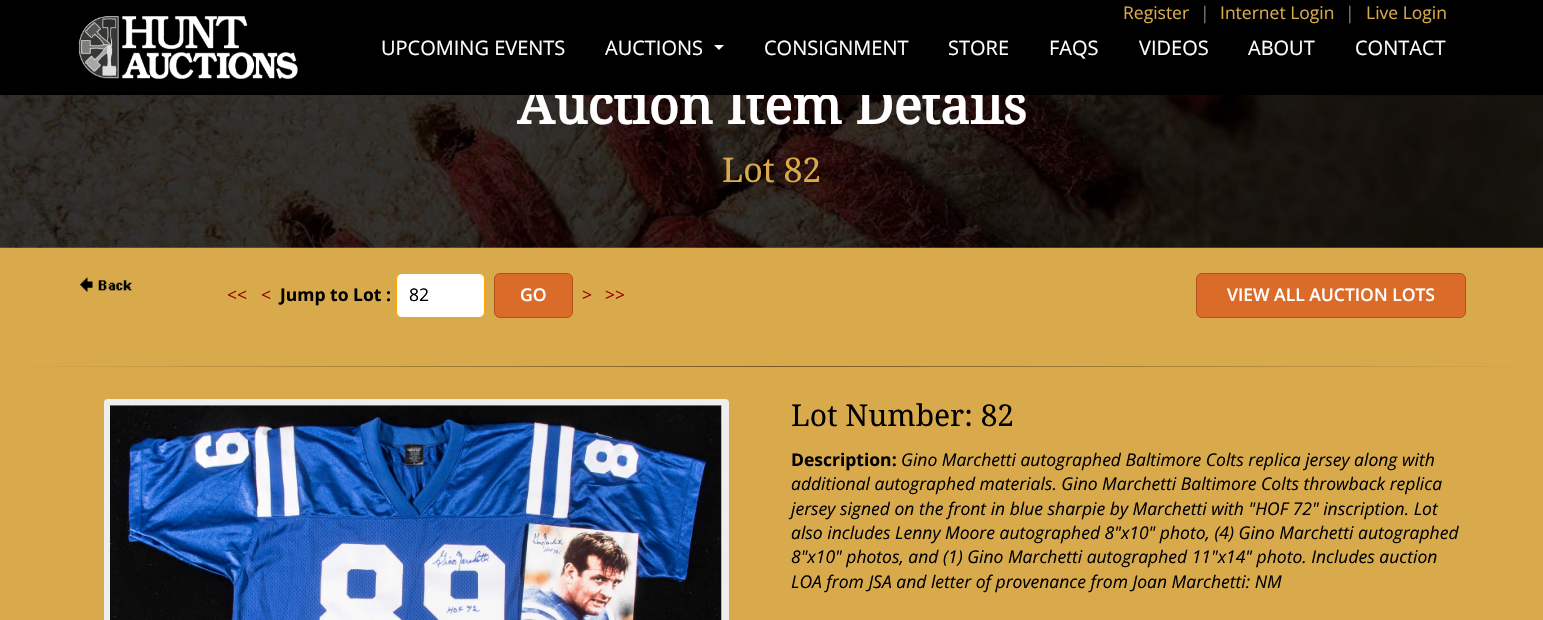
#include "include/core/SkBlurTypes.h"
#include "include/core/SkCanvas.h"
#include "include/core/SkData.h"
#include "include/core/SkFont.h"
#include "include/core/SkFontMgr.h"
#include "include/core/SkImage.h"
#include "include/core/SkMaskFilter.h"
#include "include/core/SkPaint.h"
#include "include/core/SkPathBuilder.h"
#include "include/core/SkTextBlob.h"
#include "include/effects/SkDashPathEffect.h"
#include "include/effects/SkGradientShader.h"
#include "include/utils/SkParsePath.h"

extern sk_sp<SkFontMgr> fontMgr;

static SkFont font(const char* family, int weight, float size, bool italic = false) {
    SkFontStyle style(weight, SkFontStyle::kNormal_Width,
        italic ? SkFontStyle::kItalic_Slant : SkFontStyle::kUpright_Slant);
    SkFont result(fontMgr->matchFamilyStyle(family, style), size);
    result.setSubpixel(true);
    return result;
}

static void drawLabel(SkCanvas* canvas, const char* s, float x, float y, const SkFont& font, SkColor color) {
    SkPaint ink(SkColor4f::FromColor(color));
    ink.setAntiAlias(true);
    canvas->drawString(s, x, y, font, ink);
}

static void fillRect(SkCanvas* canvas, float x, float y, float w, float h, SkColor color) {
    SkPaint ink(SkColor4f::FromColor(color));
    ink.setAntiAlias(true);
    canvas->drawRect(SkRect::MakeXYWH(x, y, w, h), ink);
}

static void drawPhoto(SkCanvas* canvas, const char* path, float x, float y, float w, float h) {
    auto image = SkImages::DeferredFromEncodedData(SkData::MakeFromFileName(path));
    canvas->drawImageRect(image, SkRect::MakeXYWH(x, y, w, h), SkSamplingOptions());
}

static SkPath parsePath(const char* data, bool evenOdd = false) {
    SkPath result = *SkParsePath::FromSVGString(data);
    if (evenOdd) result.setFillType(SkPathFillType::kEvenOdd);
    return result;
}

void draw(SkCanvas* canvas) {
    SkPaint paint;
    paint.setAntiAlias(true);
    canvas->clear(0xFFD8AA4C);
    drawPhoto(canvas, "assets/img2.png", 0, 95, 1543, 153);
    SkFont font1 = font("Droid Serif", 700, 52.5f);
    drawLabel(canvas, "Auction Item Details", 517, 124, font1, 0xFFFFFFFF);
    fillRect(canvas, 0, 0, 1543, 95, 0xFF000000);
    SkFont font2 = font("Open Sans", 400, 17.5f);
    drawLabel(canvas, "Register", 1123, 19, font2, 0xFFD8AA4C);
    drawLabel(canvas, "|", 1200, 19, font2, 0xFF7B7B7B);
    drawLabel(canvas, "Internet Login", 1220, 19, font2, 0xFFD8AA4C);
    drawLabel(canvas, "|", 1345, 19, font2, 0xFF7B7B7B);
    drawLabel(canvas, "Live Login", 1366, 19, font2, 0xFFD8AA4C);
    drawPhoto(canvas, "assets/img1.png", 78, 16, 220, 63);
    SkFont font3 = font("Open Sans", 400, 20);
    drawLabel(canvas, "UPCOMING EVENTS", 381, 55, font3, 0xFFFFFFFF);
    drawLabel(canvas, "AUCTIONS", 605, 55, font3, 0xFFFFFFFF);
    paint.setColor(0xFFFFFFFF);
    canvas->drawPath(parsePath("M714 45H724L719 50Z"), paint);
    drawLabel(canvas, "CONSIGNMENT", 764, 55, font3, 0xFFFFFFFF);
    drawLabel(canvas, "STORE", 948, 55, font3, 0xFFFFFFFF);
    drawLabel(canvas, "FAQS", 1049, 55, font3, 0xFFFFFFFF);
    drawLabel(canvas, "VIDEOS", 1139, 55, font3, 0xFFFFFFFF);
    drawLabel(canvas, "ABOUT", 1248, 55, font3, 0xFFFFFFFF);
    drawLabel(canvas, "CONTACT", 1355, 55, font3, 0xFFFFFFFF);
    SkFont font4 = font("Droid Serif", 400, 34);
    drawLabel(canvas, "Lot 82", 722, 182, font4, 0xFFD8AA4C);
    drawPhoto(canvas, "assets/img3.png", 79, 277, 53, 15);
    drawLabel(canvas, "<<", 227, 301, font2, 0xFF990000);
    drawLabel(canvas, "<", 261, 301, font2, 0xFF990000);
    SkFont font5 = font("Open Sans", 700, 17.5f);
    drawLabel(canvas, "Jump to Lot :", 280, 301, font5, 0xFF000000);
    canvas->drawRoundRect(SkRect::MakeXYWH(396.5f, 273.5f, 88, 44), 5.5f, 5.5f, paint);
    paint.setStroke(true);
    paint.setStrokeWidth(1);
    paint.setColor(0xFFFFA500);
    canvas->drawRoundRect(SkRect::MakeXYWH(396.5f, 273.5f, 88, 44), 5.5f, 5.5f, paint);
    drawLabel(canvas, "82", 409, 301, font2, 0xFF000000);
    paint.setStroke(false);
    paint.setColor(0xFFDB6B28);
    canvas->drawRoundRect(SkRect::MakeXYWH(494.5f, 273.5f, 78, 44), 5.5f, 5.5f, paint);
    paint.setStroke(true);
    paint.setColor(0xFFAD531E);
    canvas->drawRoundRect(SkRect::MakeXYWH(494.5f, 273.5f, 78, 44), 5.5f, 5.5f, paint);
    SkFont font6 = font("Open Sans", 600, 17.5f);
    drawLabel(canvas, "GO", 520, 301, font6, 0xFFFFFFFF);
    drawLabel(canvas, ">", 582, 301, font2, 0xFF990000);
    drawLabel(canvas, ">>", 605, 301, font2, 0xFF990000);
    paint.setStroke(false);
    paint.setColor(0xFFDB6B28);
    canvas->drawRoundRect(SkRect::MakeXYWH(1196.5f, 273.5f, 269, 44), 5.5f, 5.5f, paint);
    paint.setStroke(true);
    paint.setColor(0xFFAD531E);
    canvas->drawRoundRect(SkRect::MakeXYWH(1196.5f, 273.5f, 269, 44), 5.5f, 5.5f, paint);
    drawLabel(canvas, "VIEW ALL AUCTION LOTS", 1227, 301, font6, 0xFFFFFFFF);
    paint.setStroke(false);
    {
        const SkColor colors[] = {0xFFD8AA4C, 0xFF775925, 0xFFD8AA4C};
        const float stops[] = {0, 0.5f, 1};
        const SkPoint ends[] = {{0, 367}, {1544, 367}};
        paint.setShader(SkGradientShader::MakeLinear(ends, colors, stops, 3, SkTileMode::kClamp));
        paint.setAlpha(255);
    }
    canvas->drawRect(SkRect::MakeXYWH(20, 366, 1504, 1), paint);
    paint.setShader(nullptr);
    paint.setColor(0xFFEEEEEE);
    canvas->drawRoundRect(SkRect::MakeXYWH(107, 402, 619, 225), 1, 1, paint);
    paint.setStroke(true);
    paint.setStrokeWidth(6);
    canvas->drawRoundRect(SkRect::MakeXYWH(107, 402, 619, 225), 1, 1, paint);
    drawPhoto(canvas, "assets/img4.png", 110, 405, 612, 215);
    SkFont font7 = font("Droid Serif", 400, 30);
    drawLabel(canvas, "Lot Number: 82", 791, 426, font7, 0xFF000000);
    drawLabel(canvas, "Description:", 791, 466, font5, 0xFF000000);
    SkFont font8 = font("Open Sans", 400, 17.5f, true);
    drawLabel(canvas, "Gino Marchetti autographed Baltimore Colts replica jersey along with", 901, 466, font8, 0xFF000000);
    drawLabel(canvas, "additional autographed materials. Gino Marchetti Baltimore Colts throwback replica", 791, 490, font8, 0xFF000000);
    drawLabel(canvas, "jersey signed on the front in blue sharpie by Marchetti with \"HOF 72\" inscription. Lot", 791, 515, font8, 0xFF000000);
    drawLabel(canvas, "also includes Lenny Moore autographed 8\"x10\" photo, (4) Gino Marchetti autographed", 791, 539, font8, 0xFF000000);
    drawLabel(canvas, "8\"x10\" photos, and (1) Gino Marchetti autographed 11\"x14\" photo. Includes auction", 791, 563, font8, 0xFF000000);
    drawLabel(canvas, "LOA from JSA and letter of provenance from Joan Marchetti: NM", 791, 588, font8, 0xFF000000);
}
